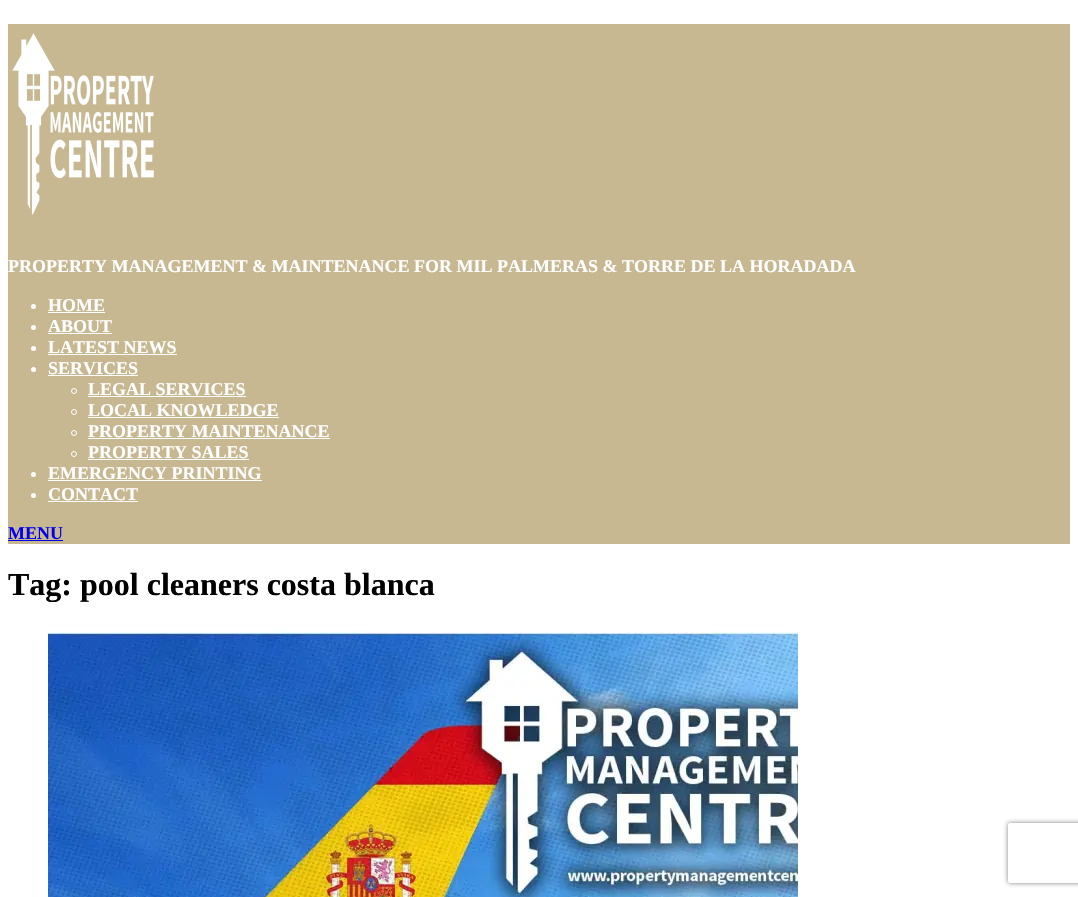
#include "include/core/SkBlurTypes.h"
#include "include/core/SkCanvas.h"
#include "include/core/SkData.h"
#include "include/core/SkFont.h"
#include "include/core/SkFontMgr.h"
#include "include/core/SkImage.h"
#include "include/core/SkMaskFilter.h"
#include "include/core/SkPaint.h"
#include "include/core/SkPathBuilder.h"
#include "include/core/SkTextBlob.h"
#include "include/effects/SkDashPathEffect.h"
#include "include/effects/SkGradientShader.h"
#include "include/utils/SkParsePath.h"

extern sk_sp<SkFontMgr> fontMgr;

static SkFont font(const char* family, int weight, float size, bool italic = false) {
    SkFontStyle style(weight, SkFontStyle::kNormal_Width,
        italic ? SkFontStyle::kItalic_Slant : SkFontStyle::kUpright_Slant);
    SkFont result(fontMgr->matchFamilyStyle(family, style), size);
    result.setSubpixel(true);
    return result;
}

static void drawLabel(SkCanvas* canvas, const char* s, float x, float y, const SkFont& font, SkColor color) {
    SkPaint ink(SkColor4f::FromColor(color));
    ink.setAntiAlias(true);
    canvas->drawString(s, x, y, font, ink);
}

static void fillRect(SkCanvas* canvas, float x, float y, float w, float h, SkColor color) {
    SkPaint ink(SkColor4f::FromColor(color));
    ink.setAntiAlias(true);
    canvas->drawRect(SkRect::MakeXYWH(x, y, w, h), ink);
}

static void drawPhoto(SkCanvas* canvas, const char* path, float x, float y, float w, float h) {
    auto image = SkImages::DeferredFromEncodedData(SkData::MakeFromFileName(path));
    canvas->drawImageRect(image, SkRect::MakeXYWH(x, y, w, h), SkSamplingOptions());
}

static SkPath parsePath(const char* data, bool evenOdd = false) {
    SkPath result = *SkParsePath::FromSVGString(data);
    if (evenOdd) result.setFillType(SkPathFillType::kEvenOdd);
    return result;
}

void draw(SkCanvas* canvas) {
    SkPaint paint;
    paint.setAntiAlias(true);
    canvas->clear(0xFFFFFFFF);
    fillRect(canvas, 8, 24, 1062, 520, 0xFFC7B891);
    drawPhoto(canvas, "assets/img1.png", 12, 33, 142, 182);
    SkFont font1 = font("Liberation Serif", 700, 18);
    drawLabel(canvas, "PROPERTY MANAGEMENT & MAINTENANCE FOR MIL PALMERAS & TORRE DE LA HORADADA", 8, 272, font1, 0xFFFFFFFF);
    paint.setColor(0xFFFFFFFF);
    canvas->drawCircle(33.5f, 306.5f, 2.5f, paint);
    drawLabel(canvas, "HOME", 48, 311, font1, 0xFFFFFFFF);
    fillRect(canvas, 48, 312, 57, 1, 0xFFFFFFFF);
    canvas->drawCircle(33.5f, 327.5f, 2.5f, paint);
    drawLabel(canvas, "ABOUT", 48, 332, font1, 0xFFFFFFFF);
    fillRect(canvas, 48, 333, 64, 1, 0xFFFFFFFF);
    canvas->drawCircle(33.5f, 348.5f, 2.5f, paint);
    drawLabel(canvas, "LATEST NEWS", 48, 353, font1, 0xFFFFFFFF);
    fillRect(canvas, 48, 354, 129, 1, 0xFFFFFFFF);
    canvas->drawCircle(33.5f, 369.5f, 2.5f, paint);
    drawLabel(canvas, "SERVICES", 48, 374, font1, 0xFFFFFFFF);
    fillRect(canvas, 48, 375, 90, 1, 0xFFFFFFFF);
    paint.setStroke(true);
    paint.setStrokeWidth(1);
    canvas->drawCircle(74, 391, 2.5f, paint);
    drawLabel(canvas, "LEGAL SERVICES", 88, 395, font1, 0xFFFFFFFF);
    fillRect(canvas, 88, 396, 158, 1, 0xFFFFFFFF);
    canvas->drawCircle(74, 412, 2.5f, paint);
    drawLabel(canvas, "LOCAL KNOWLEDGE", 88, 416, font1, 0xFFFFFFFF);
    fillRect(canvas, 88, 417, 191, 1, 0xFFFFFFFF);
    canvas->drawCircle(74, 433, 2.5f, paint);
    drawLabel(canvas, "PROPERTY MAINTENANCE", 88, 437, font1, 0xFFFFFFFF);
    fillRect(canvas, 88, 438, 242, 1, 0xFFFFFFFF);
    canvas->drawCircle(74, 454, 2.5f, paint);
    drawLabel(canvas, "PROPERTY SALES", 88, 458, font1, 0xFFFFFFFF);
    fillRect(canvas, 88, 459, 161, 1, 0xFFFFFFFF);
    paint.setStroke(false);
    canvas->drawCircle(33.5f, 474.5f, 2.5f, paint);
    drawLabel(canvas, "EMERGENCY PRINTING", 48, 479, font1, 0xFFFFFFFF);
    fillRect(canvas, 48, 480, 214, 1, 0xFFFFFFFF);
    canvas->drawCircle(33.5f, 495.5f, 2.5f, paint);
    drawLabel(canvas, "CONTACT", 48, 500, font1, 0xFFFFFFFF);
    fillRect(canvas, 48, 501, 90, 1, 0xFFFFFFFF);
    drawLabel(canvas, "MENU", 8, 539, font1, 0xFF0000EE);
    fillRect(canvas, 8, 540, 55, 1, 0xFF0000EE);
    SkFont font2 = font("Liberation Serif", 700, 32);
    drawLabel(canvas, "Tag: pool cleaners costa blanca", 8, 595, font2, 0xFF000000);
    drawPhoto(canvas, "assets/img2.png", 48, 631, 750, 266);
    canvas->save();
    canvas->clipPath(parsePath("M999 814H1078V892H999ZM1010 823H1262C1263 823 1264 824 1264 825V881C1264 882 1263 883 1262 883H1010C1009 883 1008 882 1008 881V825C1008 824 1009 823 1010 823Z", true), true);
    paint.setColor(0xFF808080);
    paint.setMaskFilter(SkMaskFilter::MakeBlur(kNormal_SkBlurStyle, 2.5f));
    canvas->drawRoundRect(SkRect::MakeXYWH(1008, 823, 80, 60), 2, 2, paint);
    paint.setMaskFilter(nullptr);
    canvas->restore();
}
